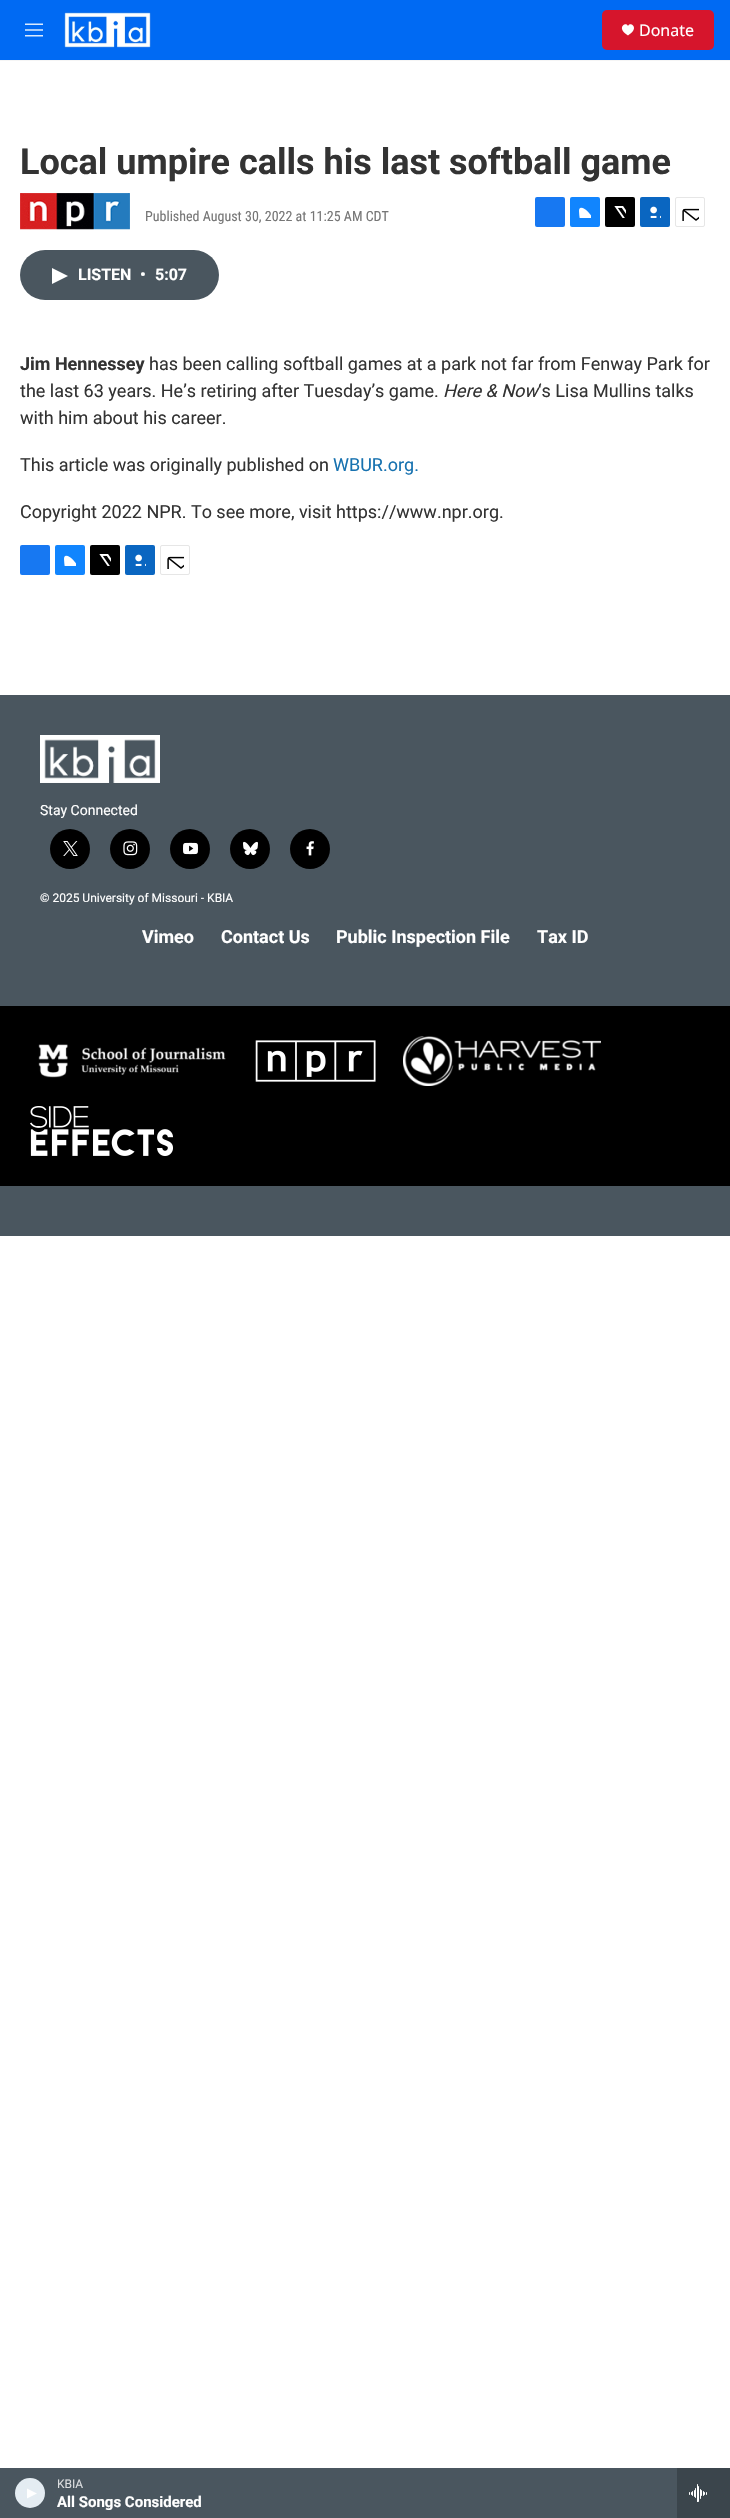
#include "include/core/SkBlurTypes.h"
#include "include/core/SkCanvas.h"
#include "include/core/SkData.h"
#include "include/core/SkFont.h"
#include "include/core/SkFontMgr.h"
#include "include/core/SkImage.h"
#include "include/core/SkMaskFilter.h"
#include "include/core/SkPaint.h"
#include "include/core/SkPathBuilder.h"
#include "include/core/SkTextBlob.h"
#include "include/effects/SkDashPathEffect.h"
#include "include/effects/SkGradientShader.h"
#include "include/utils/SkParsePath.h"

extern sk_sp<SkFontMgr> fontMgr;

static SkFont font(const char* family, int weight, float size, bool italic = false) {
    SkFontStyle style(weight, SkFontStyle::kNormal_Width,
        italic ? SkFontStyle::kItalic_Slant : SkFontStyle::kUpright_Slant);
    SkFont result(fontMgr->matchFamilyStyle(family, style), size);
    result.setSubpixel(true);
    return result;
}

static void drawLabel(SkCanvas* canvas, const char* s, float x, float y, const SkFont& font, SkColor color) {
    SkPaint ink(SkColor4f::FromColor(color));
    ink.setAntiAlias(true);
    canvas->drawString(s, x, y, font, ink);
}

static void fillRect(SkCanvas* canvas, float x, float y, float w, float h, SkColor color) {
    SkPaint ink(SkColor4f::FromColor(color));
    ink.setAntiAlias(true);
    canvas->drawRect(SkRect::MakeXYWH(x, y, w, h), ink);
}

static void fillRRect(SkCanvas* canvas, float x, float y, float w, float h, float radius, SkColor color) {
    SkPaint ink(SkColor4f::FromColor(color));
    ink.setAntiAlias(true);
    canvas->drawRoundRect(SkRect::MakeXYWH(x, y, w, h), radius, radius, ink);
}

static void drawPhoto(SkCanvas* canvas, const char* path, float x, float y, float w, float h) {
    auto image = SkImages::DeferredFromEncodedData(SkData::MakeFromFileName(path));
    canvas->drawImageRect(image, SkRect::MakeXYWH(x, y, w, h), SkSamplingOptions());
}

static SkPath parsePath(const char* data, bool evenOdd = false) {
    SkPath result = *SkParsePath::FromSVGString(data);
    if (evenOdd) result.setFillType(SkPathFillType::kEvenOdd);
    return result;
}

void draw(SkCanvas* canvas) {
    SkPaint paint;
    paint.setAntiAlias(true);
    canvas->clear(0xFFFFFFFF);
    fillRect(canvas, 0, 0, 730, 60, 0xFF006AF3);
    fillRect(canvas, 0, 60, 730, 1, 0xFFF5F5F5);
    drawPhoto(canvas, "assets/img1.png", 25, 23, 18, 14);
    drawPhoto(canvas, "assets/img2.png", 64, 12, 87, 36);
    fillRRect(canvas, 602, 10, 112, 40, 5, 0xFFD6152C);
    paint.setColor(0xFFFFFFFF);
    canvas->drawPath(parsePath("M628 26C626 21 615.5 28 628 35.5C640.5 28 630 21 628 26Z"), paint);
    SkFont font1 = font("Noto Sans", 400, 16);
    drawLabel(canvas, "Donate", 639, 36, font1, 0xFFFFFFFF);
    fillRect(canvas, 0, 2468, 677, 50, 0xFF4A565F);
    paint.setColor(0xFFE4ECF2);
    canvas->drawCircle(30, 2493, 15, paint);
    paint.setColor(0xFFFFFFFF);
    canvas->drawPath(parsePath("M27 2488.5L37 2493.5L27 2498.5Z"), paint);
    SkFont font2 = font("Roboto", 400, 12);
    drawLabel(canvas, "KBIA", 57, 2488, font2, 0xFFDBDDDF);
    SkFont font3 = font("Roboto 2", 700, 15);
    drawLabel(canvas, "All Songs Considered", 57, 2507, font3, 0xFFFFFFFF);
    fillRect(canvas, 677, 2468, 53, 50, 0xFF3B454C);
    drawPhoto(canvas, "assets/img3.png", 689, 2484, 18, 18);
    SkFont font4 = font("Roboto", 700, 36);
    drawLabel(canvas, "Local umpire calls his last softball game", 20, 174, font4, 0xFF333333);
    drawPhoto(canvas, "assets/img4.png", 20, 193, 110, 37);
    SkFont font5 = font("Roboto Condensed", 400, 14);
    drawLabel(canvas, "Published August 30, 2022 at 11:25 AM CDT", 145, 221, font5, 0xFF767676);
    fillRRect(canvas, 535, 197, 30, 30, 2, 0xFF1778F2);
    fillRRect(canvas, 570, 197, 30, 30, 2, 0xFF1185FE);
    drawPhoto(canvas, "assets/img5.png", 579, 207, 12, 11);
    fillRRect(canvas, 605, 197, 30, 30, 2, 0xFF000000);
    drawPhoto(canvas, "assets/img6.png", 614, 206, 12, 12);
    fillRRect(canvas, 640, 197, 30, 30, 2, 0xFF0A66C1);
    drawPhoto(canvas, "assets/img7.png", 650, 206, 11, 12);
    paint.setStroke(true);
    paint.setStrokeWidth(1);
    paint.setColor(0xFFE6E6E6);
    canvas->drawRoundRect(SkRect::MakeXYWH(675.5f, 197.5f, 29, 29), 1.5f, 1.5f, paint);
    drawPhoto(canvas, "assets/img8.png", 682, 208, 17, 13);
    fillRRect(canvas, 20, 250, 199, 50, 25, 0xFF4A565F);
    paint.setStroke(false);
    paint.setColor(0xFFFFFFFF);
    canvas->drawPath(parsePath("M52 268L68 276L52 284Z"), paint);
    SkFont font6 = font("Roboto 2", 700, 16);
    drawLabel(canvas, "LISTEN", 78, 280, font6, 0xFFFFFFFF);
    drawLabel(canvas, "•", 140, 280, font6, 0xFFFFFFFF);
    drawLabel(canvas, "5:07", 155, 280, font6, 0xFFFFFFFF);
    SkFont font7 = font("Roboto 2", 700, 18);
    drawLabel(canvas, "Jim Hennessey", 20, 370, font7, 0xFF333333);
    SkFont font8 = font("Roboto", 400, 18);
    drawLabel(canvas, "has been calling softball games at a park not far from Fenway Park for", 149, 370, font8, 0xFF333333);
    drawLabel(canvas, "the last 63 years. He’s retiring after Tuesday’s game.", 20, 397, font8, 0xFF333333);
    SkFont font9 = font("Roboto", 400, 18, true);
    drawLabel(canvas, "Here & Now", 443, 397, font9, 0xFF333333);
    drawLabel(canvas, "‘s Lisa Mullins talks", 538, 397, font8, 0xFF333333);
    drawLabel(canvas, "with him about his career.", 20, 424, font8, 0xFF333333);
    drawLabel(canvas, "This article was originally published on", 20, 471, font8, 0xFF333333);
    drawLabel(canvas, "WBUR.org.", 333, 471, font8, 0xFF1772B0);
    drawLabel(canvas, "Copyright 2022 NPR. To see more, visit https://www.npr.org.", 20, 518, font8, 0xFF333333);
    fillRRect(canvas, 20, 545, 30, 30, 2, 0xFF1778F2);
    fillRRect(canvas, 55, 545, 30, 30, 2, 0xFF1185FE);
    drawPhoto(canvas, "assets/img5.png", 64, 555, 12, 11);
    fillRRect(canvas, 90, 545, 30, 30, 2, 0xFF000000);
    drawPhoto(canvas, "assets/img6.png", 99, 554, 12, 12);
    fillRRect(canvas, 125, 545, 30, 30, 2, 0xFF0A66C1);
    drawPhoto(canvas, "assets/img7.png", 135, 554, 11, 12);
    paint.setStroke(true);
    paint.setColor(0xFFE6E6E6);
    canvas->drawRoundRect(SkRect::MakeXYWH(160.5f, 545.5f, 29, 29), 1.5f, 1.5f, paint);
    drawPhoto(canvas, "assets/img8.png", 167, 556, 17, 13);
    fillRect(canvas, 0, 695, 730, 541, 0xFF4A565F);
    drawPhoto(canvas, "assets/img9.png", 40, 735, 120, 48);
    SkFont font10 = font("Roboto", 400, 14);
    drawLabel(canvas, "Stay Connected", 40, 815, font10, 0xFFFFFFFF);
    paint.setStroke(false);
    paint.setColor(0xFF000000);
    canvas->drawCircle(70, 849, 20, paint);
    drawPhoto(canvas, "assets/img10.png", 63, 841, 15, 15);
    canvas->drawCircle(130, 849, 20, paint);
    drawPhoto(canvas, "assets/img11.png", 123, 841, 15, 15);
    canvas->drawCircle(190, 849, 20, paint);
    drawPhoto(canvas, "assets/img12.png", 183, 842, 15, 13);
    canvas->drawCircle(250, 849, 20, paint);
    drawPhoto(canvas, "assets/img13.png", 243, 841, 15, 15);
    canvas->drawCircle(310, 849, 20, paint);
    drawPhoto(canvas, "assets/img14.png", 306, 841, 8, 15);
    drawLabel(canvas, "© 2025 University of Missouri - KBIA", 40, 902, font2, 0xFFFFFFFF);
    SkFont font11 = font("Roboto", 700, 18);
    drawLabel(canvas, "Vimeo", 142, 943, font11, 0xFFFFFFFF);
    drawLabel(canvas, "Contact Us", 221, 943, font11, 0xFFFFFFFF);
    drawLabel(canvas, "Public Inspection File", 336, 943, font11, 0xFFFFFFFF);
    drawLabel(canvas, "Tax ID", 537, 943, font11, 0xFFFFFFFF);
    fillRect(canvas, 0, 1006, 730, 180, 0xFF000000);
    drawPhoto(canvas, "assets/img15.png", 38, 1044, 188, 34);
    drawPhoto(canvas, "assets/img16.png", 255, 1040, 121, 42);
    drawPhoto(canvas, "assets/img17.png", 403, 1036, 198, 50);
    drawPhoto(canvas, "assets/img18.png", 30, 1106, 143, 50);
}
